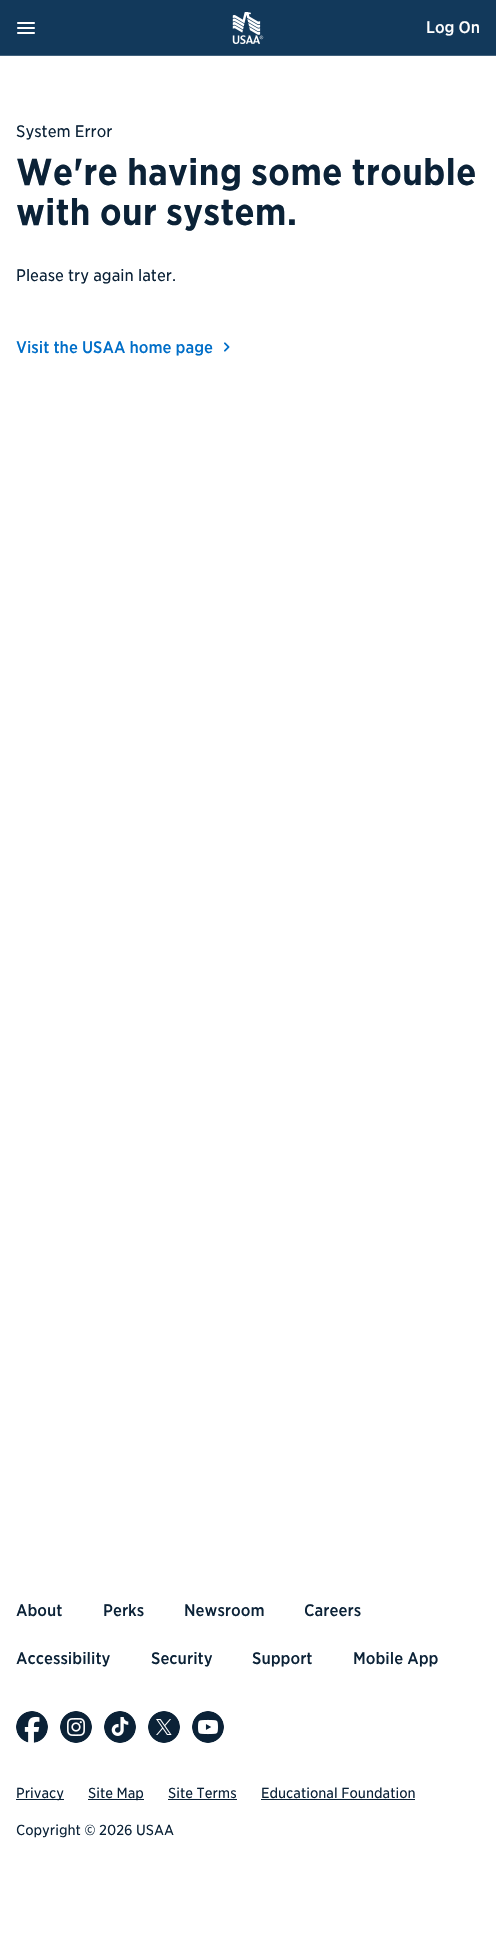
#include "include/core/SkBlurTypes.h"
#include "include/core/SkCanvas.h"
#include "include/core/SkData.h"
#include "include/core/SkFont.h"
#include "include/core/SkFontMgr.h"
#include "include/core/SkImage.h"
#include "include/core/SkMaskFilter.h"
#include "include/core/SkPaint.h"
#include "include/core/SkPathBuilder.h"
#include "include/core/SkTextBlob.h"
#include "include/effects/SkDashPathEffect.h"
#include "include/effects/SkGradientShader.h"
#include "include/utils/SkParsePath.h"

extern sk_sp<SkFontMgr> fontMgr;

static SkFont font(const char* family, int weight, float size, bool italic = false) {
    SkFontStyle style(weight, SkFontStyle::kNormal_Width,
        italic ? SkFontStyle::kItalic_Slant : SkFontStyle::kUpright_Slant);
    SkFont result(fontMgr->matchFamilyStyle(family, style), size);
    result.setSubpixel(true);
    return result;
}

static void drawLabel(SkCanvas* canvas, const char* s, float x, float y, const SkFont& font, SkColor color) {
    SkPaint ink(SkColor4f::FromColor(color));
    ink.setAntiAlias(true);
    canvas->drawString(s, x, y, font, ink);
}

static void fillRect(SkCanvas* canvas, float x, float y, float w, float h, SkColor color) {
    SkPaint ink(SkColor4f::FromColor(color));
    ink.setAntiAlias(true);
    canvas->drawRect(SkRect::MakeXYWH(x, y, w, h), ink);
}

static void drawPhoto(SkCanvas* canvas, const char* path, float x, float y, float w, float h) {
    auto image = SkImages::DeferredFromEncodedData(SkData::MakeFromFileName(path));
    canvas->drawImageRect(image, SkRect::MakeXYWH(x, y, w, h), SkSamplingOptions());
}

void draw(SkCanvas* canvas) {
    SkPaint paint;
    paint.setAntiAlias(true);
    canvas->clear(0xFFFFFFFF);
    fillRect(canvas, 0, 0, 496, 55, 0xFF12395B);
    fillRect(canvas, 0, 55, 496, 1, 0xFF41617C);
    drawPhoto(canvas, "assets/img1.png", 17, 22, 18, 12);
    drawPhoto(canvas, "assets/img2.png", 232, 12, 32, 32);
    SkFont font1 = font("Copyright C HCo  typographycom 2", 300, 16);
    drawLabel(canvas, "Log On", 426, 33, font1, 0xFFFFFFFF);
    SkFont font2 = font("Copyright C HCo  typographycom", 300, 16);
    drawLabel(canvas, "System Error", 16, 137, font2, 0xFF0B2237);
    SkFont font3 = font("Copyright C HCo  typographycom", 400, 36);
    drawLabel(canvas, "We're having some trouble", 16, 185, font3, 0xFF0B2237);
    drawLabel(canvas, "with our system.", 16, 225, font3, 0xFF0B2237);
    drawLabel(canvas, "Please try again later.", 16, 281, font2, 0xFF0B2237);
    drawLabel(canvas, "Visit the USAA home page", 16, 353, font1, 0xFF006EC8);
    drawPhoto(canvas, "assets/img3.png", 224, 342, 6, 10);
    drawLabel(canvas, "About", 16, 1616, font1, 0xFF0B2237);
    drawLabel(canvas, "Perks", 103, 1616, font1, 0xFF0B2237);
    drawLabel(canvas, "Newsroom", 184, 1616, font1, 0xFF0B2237);
    drawLabel(canvas, "Careers", 304, 1616, font1, 0xFF0B2237);
    drawLabel(canvas, "Accessibility", 16, 1664, font1, 0xFF0B2237);
    drawLabel(canvas, "Security", 151, 1664, font1, 0xFF0B2237);
    drawLabel(canvas, "Support", 252, 1664, font1, 0xFF0B2237);
    drawLabel(canvas, "Mobile App", 353, 1664, font1, 0xFF0B2237);
    drawPhoto(canvas, "assets/img4.png", 16, 1711, 32, 32);
    drawPhoto(canvas, "assets/img5.png", 60, 1711, 32, 32);
    drawPhoto(canvas, "assets/img6.png", 104, 1711, 32, 32);
    drawPhoto(canvas, "assets/img7.png", 148, 1711, 32, 32);
    drawPhoto(canvas, "assets/img8.png", 192, 1711, 32, 32);
    fillRect(canvas, 16, 1799, 48, 1, 0xFF0B2237);
    SkFont font4 = font("Copyright C HCo  typographycom", 300, 14);
    drawLabel(canvas, "Privacy", 16, 1798, font4, 0xFF0B2237);
    fillRect(canvas, 88, 1799, 56, 1, 0xFF0B2237);
    drawLabel(canvas, "Site Map", 88, 1798, font4, 0xFF0B2237);
    drawLabel(canvas, "Site Terms", 168, 1798, font4, 0xFF0B2237);
    fillRect(canvas, 168, 1799, 69, 1, 0xFF0B2237);
    drawLabel(canvas, "Educational Foundation", 261, 1798, font4, 0xFF0B2237);
    fillRect(canvas, 261, 1799, 154, 1, 0xFF0B2237);
    drawLabel(canvas, "Copyright © 2026 USAA", 16, 1835, font4, 0xFF0B2237);
}
